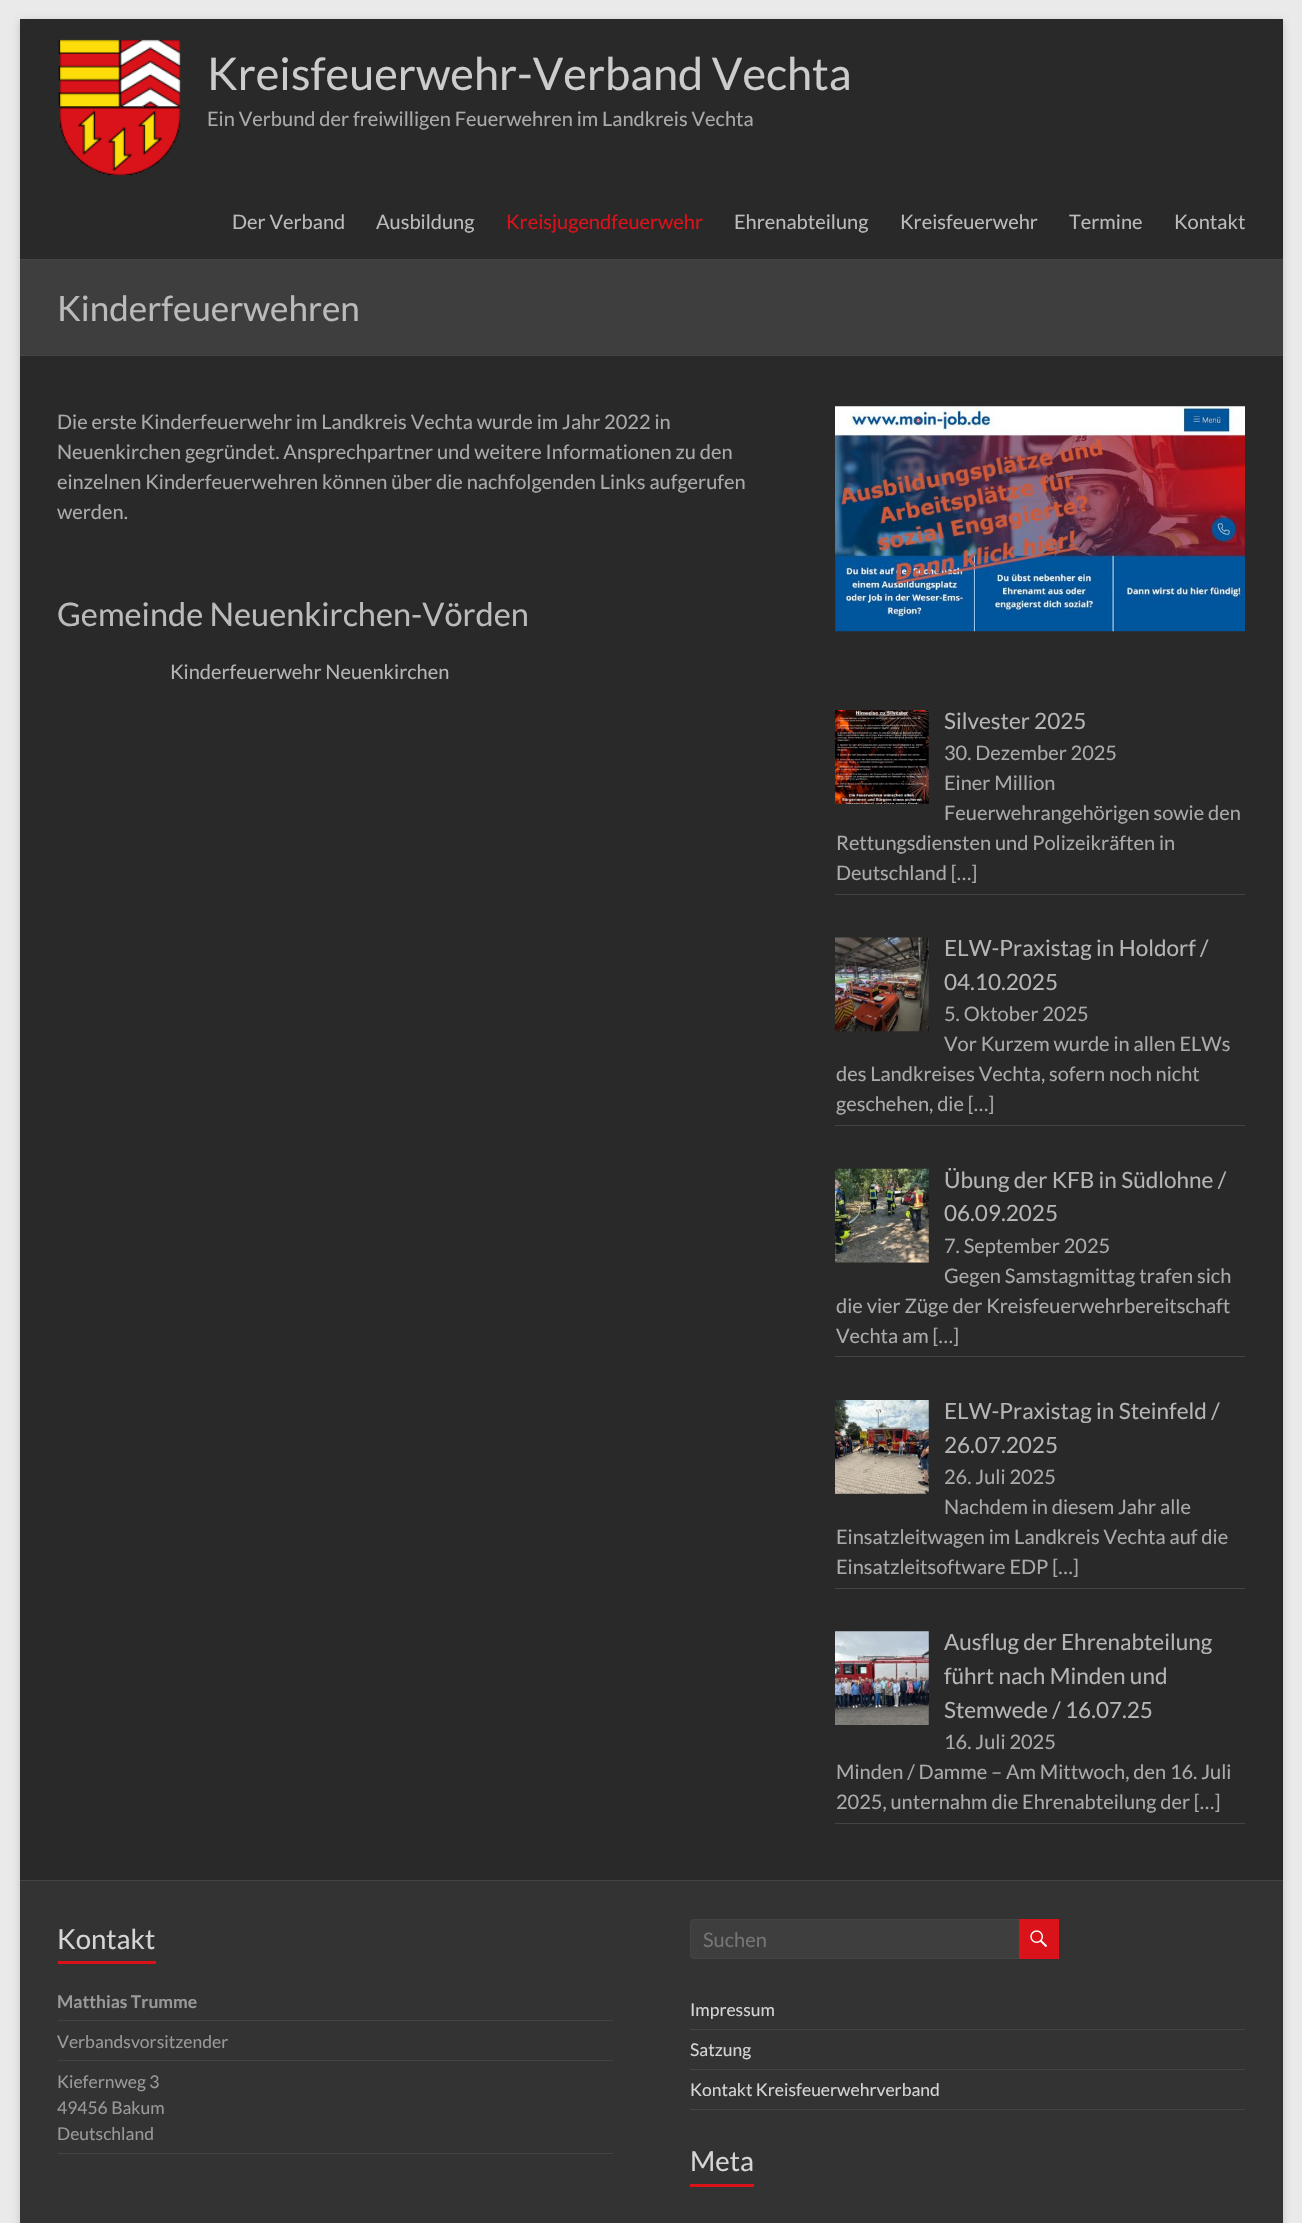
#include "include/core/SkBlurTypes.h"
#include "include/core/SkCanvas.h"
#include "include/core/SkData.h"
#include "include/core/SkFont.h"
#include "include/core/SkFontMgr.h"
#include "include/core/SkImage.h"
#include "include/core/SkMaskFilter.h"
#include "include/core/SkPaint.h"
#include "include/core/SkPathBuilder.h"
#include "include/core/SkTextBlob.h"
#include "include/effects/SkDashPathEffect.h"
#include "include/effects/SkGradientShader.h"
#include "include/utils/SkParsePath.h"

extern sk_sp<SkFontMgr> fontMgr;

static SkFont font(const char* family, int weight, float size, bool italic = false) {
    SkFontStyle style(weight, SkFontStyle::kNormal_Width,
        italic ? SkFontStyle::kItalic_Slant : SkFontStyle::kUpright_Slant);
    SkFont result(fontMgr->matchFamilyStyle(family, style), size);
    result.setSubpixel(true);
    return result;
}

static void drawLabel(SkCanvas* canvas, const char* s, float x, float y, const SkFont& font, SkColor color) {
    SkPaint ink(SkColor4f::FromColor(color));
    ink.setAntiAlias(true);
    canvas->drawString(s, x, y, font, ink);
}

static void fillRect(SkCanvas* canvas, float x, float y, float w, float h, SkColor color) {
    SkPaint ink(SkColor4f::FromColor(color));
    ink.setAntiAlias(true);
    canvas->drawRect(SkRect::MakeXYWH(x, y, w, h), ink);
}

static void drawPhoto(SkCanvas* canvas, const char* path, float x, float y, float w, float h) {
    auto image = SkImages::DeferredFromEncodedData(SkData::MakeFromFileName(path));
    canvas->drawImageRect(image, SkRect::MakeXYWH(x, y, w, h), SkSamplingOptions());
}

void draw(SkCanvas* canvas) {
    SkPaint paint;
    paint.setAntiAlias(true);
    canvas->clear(0xFFEAEAEA);
    paint.setColor(0x4D646464);
    paint.setMaskFilter(SkMaskFilter::MakeBlur(kNormal_SkBlurStyle, 4));
    canvas->drawRect(SkRect::MakeXYWH(20, 21, 1263, 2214), paint);
    paint.setMaskFilter(nullptr);
    fillRect(canvas, 20, 19, 1263, 1861, 0xFF292929);
    fillRect(canvas, 20, 259, 1263, 1, 0xFF444444);
    drawPhoto(canvas, "assets/img1.png", 58, 39, 123, 137);
    SkFont font1 = font("Lato", 400, 45);
    drawLabel(canvas, "Kreisfeuerwehr-Verband Vechta", 207, 90, font1, 0xFFCCCCCC);
    SkFont font2 = font("Lato", 400, 20);
    drawLabel(canvas, "Ein Verbund der freiwilligen Feuerwehren im Landkreis Vechta", 207, 126, font2, 0xFFAAAAAA);
    drawLabel(canvas, "Der Verband", 232, 229, font2, 0xFFBBBBBB);
    drawLabel(canvas, "Ausbildung", 376, 229, font2, 0xFFBBBBBB);
    drawLabel(canvas, "Kreisjugendfeuerwehr", 506, 229, font2, 0xFFDA121A);
    drawLabel(canvas, "Ehrenabteilung", 734, 229, font2, 0xFFBBBBBB);
    drawLabel(canvas, "Kreisfeuerwehr", 900, 229, font2, 0xFFBBBBBB);
    drawLabel(canvas, "Termine", 1069, 229, font2, 0xFFBBBBBB);
    drawLabel(canvas, "Kontakt", 1174, 229, font2, 0xFFBBBBBB);
    fillRect(canvas, 20, 260, 1263, 95, 0xFF3E3E3E);
    fillRect(canvas, 20, 355, 1263, 1, 0xFF444444);
    SkFont font3 = font("Lato", 400, 35);
    drawLabel(canvas, "Kinderfeuerwehren", 57, 321, font3, 0xFFBBBBBB);
    drawLabel(canvas, "Die erste Kinderfeuerwehr im Landkreis Vechta wurde im Jahr 2022 in", 57, 429, font2, 0xFFAAAAAA);
    drawLabel(canvas, "Neuenkirchen gegründet. Ansprechpartner und weitere Informationen zu den", 57, 459, font2, 0xFFAAAAAA);
    drawLabel(canvas, "einzelnen Kinderfeuerwehren können über die nachfolgenden Links aufgerufen", 57, 489, font2, 0xFFAAAAAA);
    drawLabel(canvas, "werden.", 57, 519, font2, 0xFFAAAAAA);
    SkFont font4 = font("Lato", 400, 32.5f);
    drawLabel(canvas, "Gemeinde Neuenkirchen-Vörden", 57, 626, font4, 0xFFBBBBBB);
    drawLabel(canvas, "Kinderfeuerwehr Neuenkirchen", 170, 679, font2, 0xFFB5B5B5);
    drawPhoto(canvas, "assets/img2.png", 835, 406, 410, 226);
    fillRect(canvas, 835, 894, 410, 1, 0xFF444444);
    drawPhoto(canvas, "assets/img3.png", 835, 710, 94, 94);
    SkFont font5 = font("Lato", 400, 22.5f);
    drawLabel(canvas, "Silvester 2025", 944, 729, font5, 0xFFB5B5B5);
    drawLabel(canvas, "30. Dezember 2025", 944, 760, font2, 0xFFAAAAAA);
    drawLabel(canvas, "Einer Million", 944, 790, font2, 0xFFAAAAAA);
    drawLabel(canvas, "Feuerwehrangehörigen sowie den", 944, 820, font2, 0xFFAAAAAA);
    drawLabel(canvas, "Rettungsdiensten und Polizeikräften in", 836, 850, font2, 0xFFAAAAAA);
    drawLabel(canvas, "Deutschland […]", 836, 880, font2, 0xFFAAAAAA);
    fillRect(canvas, 835, 1125, 410, 1, 0xFF444444);
    drawPhoto(canvas, "assets/img4.png", 835, 937, 94, 95);
    drawLabel(canvas, "ELW-Praxistag in Holdorf /", 944, 956, font5, 0xFFB5B5B5);
    drawLabel(canvas, "04.10.2025", 944, 990, font5, 0xFFB5B5B5);
    drawLabel(canvas, "5. Oktober 2025", 944, 1021, font2, 0xFFAAAAAA);
    drawLabel(canvas, "Vor Kurzem wurde in allen ELWs", 944, 1051, font2, 0xFFAAAAAA);
    drawLabel(canvas, "des Landkreises Vechta, sofern noch nicht", 836, 1081, font2, 0xFFAAAAAA);
    drawLabel(canvas, "geschehen, die […]", 836, 1111, font2, 0xFFAAAAAA);
    fillRect(canvas, 835, 1356, 410, 1, 0xFF444444);
    drawPhoto(canvas, "assets/img5.png", 835, 1168, 94, 95);
    drawLabel(canvas, "Übung der KFB in Südlohne /", 944, 1188, font5, 0xFFB5B5B5);
    drawLabel(canvas, "06.09.2025", 944, 1221, font5, 0xFFB5B5B5);
    drawLabel(canvas, "7. September 2025", 944, 1253, font2, 0xFFAAAAAA);
    drawLabel(canvas, "Gegen Samstagmittag trafen sich", 944, 1283, font2, 0xFFAAAAAA);
    drawLabel(canvas, "die vier Züge der Kreisfeuerwehrbereitschaft", 836, 1313, font2, 0xFFAAAAAA);
    drawLabel(canvas, "Vechta am […]", 836, 1343, font2, 0xFFAAAAAA);
    fillRect(canvas, 835, 1588, 410, 1, 0xFF444444);
    drawPhoto(canvas, "assets/img6.png", 835, 1400, 94, 94);
    drawLabel(canvas, "ELW-Praxistag in Steinfeld /", 944, 1419, font5, 0xFFB5B5B5);
    drawLabel(canvas, "26.07.2025", 944, 1453, font5, 0xFFB5B5B5);
    drawLabel(canvas, "26. Juli 2025", 944, 1484, font2, 0xFFAAAAAA);
    drawLabel(canvas, "Nachdem in diesem Jahr alle", 944, 1514, font2, 0xFFAAAAAA);
    drawLabel(canvas, "Einsatzleitwagen im Landkreis Vechta auf die", 836, 1544, font2, 0xFFAAAAAA);
    drawLabel(canvas, "Einsatzleitsoftware EDP […]", 836, 1574, font2, 0xFFAAAAAA);
    fillRect(canvas, 835, 1823, 410, 1, 0xFF444444);
    drawPhoto(canvas, "assets/img7.png", 835, 1631, 94, 94);
    drawLabel(canvas, "Ausflug der Ehrenabteilung", 944, 1650, font5, 0xFFB5B5B5);
    drawLabel(canvas, "führt nach Minden und", 944, 1684, font5, 0xFFB5B5B5);
    drawLabel(canvas, "Stemwede / 16.07.25", 944, 1718, font5, 0xFFB5B5B5);
    drawLabel(canvas, "16. Juli 2025", 944, 1749, font2, 0xFFAAAAAA);
    drawLabel(canvas, "Minden / Damme – Am Mittwoch, den 16. Juli", 836, 1779, font2, 0xFFAAAAAA);
    drawLabel(canvas, "2025, unternahm die Ehrenabteilung der […]", 836, 1809, font2, 0xFFAAAAAA);
    fillRect(canvas, 20, 1881, 1263, 342, 0xFF333333);
    fillRect(canvas, 20, 1880, 1263, 1, 0xFF444444);
    SkFont font6 = font("Lato", 400, 27.5f);
    drawLabel(canvas, "Kontakt", 57, 1949, font6, 0xFFD5D5D5);
    fillRect(canvas, 58, 1961, 98, 3, 0xFFDA121A);
    fillRect(canvas, 58, 2020, 555, 1, 0xFF444444);
    SkFont font7 = font("Lato", 700, 17.5f);
    drawLabel(canvas, "Matthias Trumme", 57, 2008, font7, 0xFF999999);
    fillRect(canvas, 58, 2060, 555, 1, 0xFF444444);
    SkFont font8 = font("Lato", 400, 17.5f);
    drawLabel(canvas, "Verbandsvorsitzender", 57, 2048, font8, 0xFF999999);
    fillRect(canvas, 58, 2153, 555, 1, 0xFF444444);
    drawLabel(canvas, "Kiefernweg 3", 57, 2088, font8, 0xFF999999);
    drawLabel(canvas, "49456 Bakum", 57, 2114, font8, 0xFF999999);
    drawLabel(canvas, "Deutschland", 57, 2140, font8, 0xFF999999);
    paint.setColor(0xFF3E3E3E);
    canvas->drawRoundRect(SkRect::MakeXYWH(690.5f, 1919.5f, 332, 39), 3.5f, 3.5f, paint);
    paint.setStroke(true);
    paint.setStrokeWidth(1);
    paint.setColor(0xFF444444);
    canvas->drawRoundRect(SkRect::MakeXYWH(690.5f, 1919.5f, 332, 39), 3.5f, 3.5f, paint);
    drawLabel(canvas, "Suchen", 703, 1947, font2, 0xFF757575);
    fillRect(canvas, 1019, 1919, 40, 40, 0xFFDA121A);
    drawPhoto(canvas, "assets/img8.png", 1030, 1930, 18, 18);
    fillRect(canvas, 690, 2029, 555, 1, 0xFF444444);
    drawLabel(canvas, "Impressum", 690, 2016, font8, 0xFFD5D5D5);
    fillRect(canvas, 690, 2069, 555, 1, 0xFF444444);
    drawLabel(canvas, "Satzung", 690, 2056, font8, 0xFFD5D5D5);
    fillRect(canvas, 690, 2109, 555, 1, 0xFF444444);
    drawLabel(canvas, "Kontakt Kreisfeuerwehrverband", 690, 2096, font8, 0xFFD5D5D5);
    drawLabel(canvas, "Meta", 690, 2171, font6, 0xFFD5D5D5);
    fillRect(canvas, 690, 2184, 64, 3, 0xFFDA121A);
}
